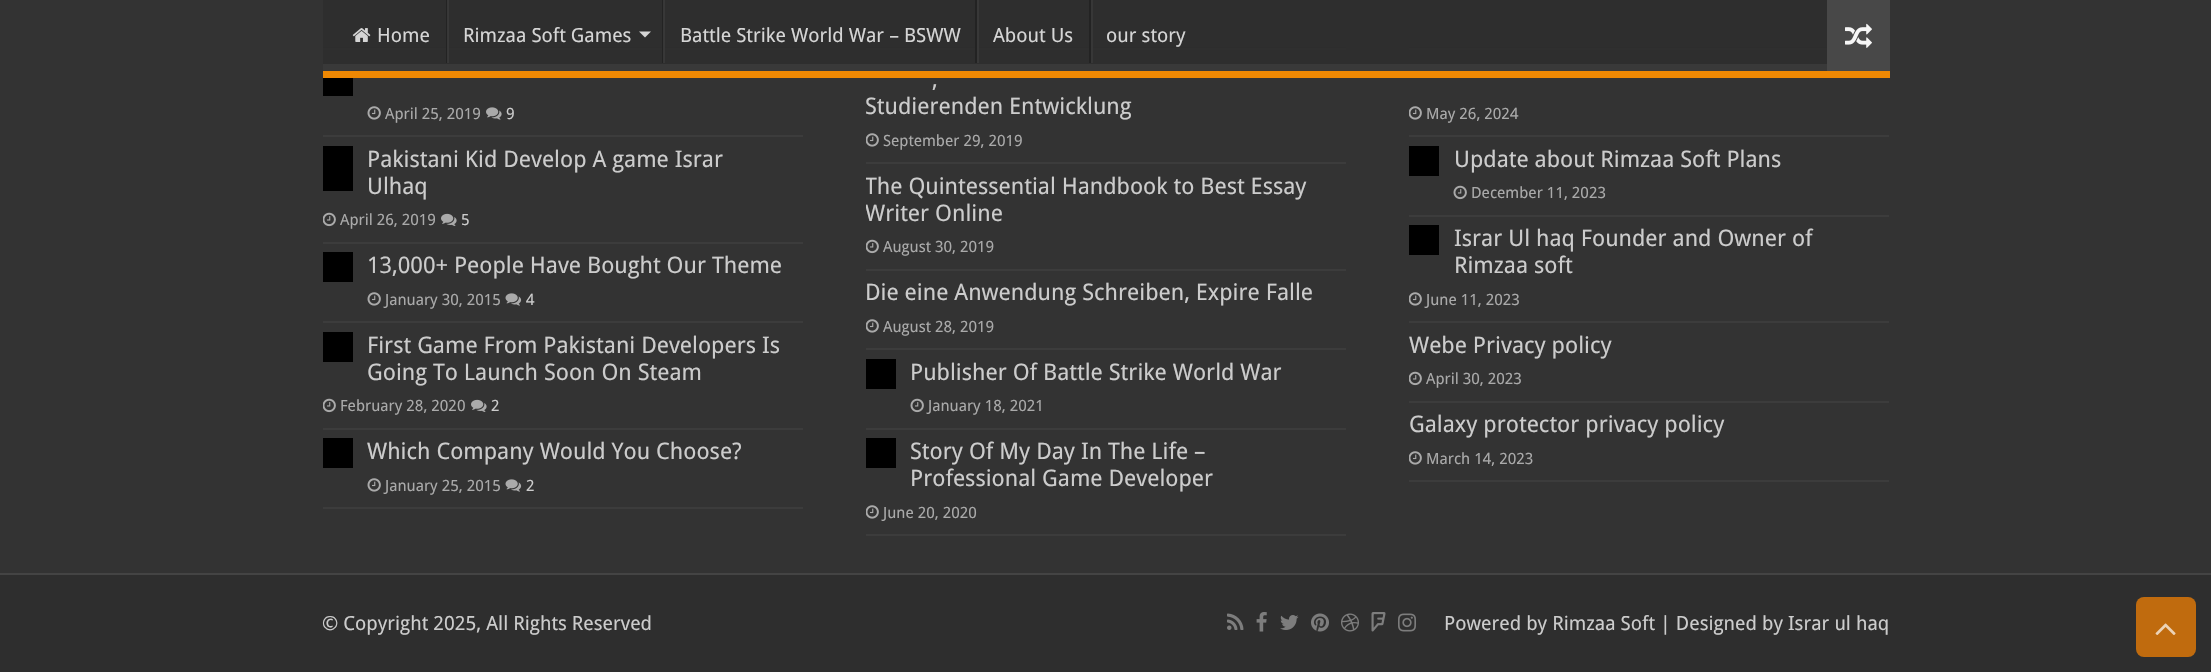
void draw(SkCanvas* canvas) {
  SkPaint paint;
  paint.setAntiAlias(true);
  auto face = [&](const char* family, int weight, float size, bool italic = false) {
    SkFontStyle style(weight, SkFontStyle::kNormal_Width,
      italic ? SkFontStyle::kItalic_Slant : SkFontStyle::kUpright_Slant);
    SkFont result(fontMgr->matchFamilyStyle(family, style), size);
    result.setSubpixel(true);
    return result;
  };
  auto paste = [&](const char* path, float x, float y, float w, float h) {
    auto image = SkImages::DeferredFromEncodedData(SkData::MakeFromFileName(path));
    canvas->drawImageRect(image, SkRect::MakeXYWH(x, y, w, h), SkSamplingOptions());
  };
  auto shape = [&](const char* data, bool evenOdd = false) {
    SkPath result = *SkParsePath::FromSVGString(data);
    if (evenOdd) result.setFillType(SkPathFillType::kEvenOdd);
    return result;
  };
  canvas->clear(0xff333333);
  {
    const struct { float x, y, w, h; SkColor color; } items[] = {
      {323, 47, 480, 1, 0xff222222},
      {323, 48, 480, 2, 0xff444444},
      {323, 66, 30, 30, 0xff000000},
      {866, 47, 480, 1, 0xff222222},
      {866, 48, 480, 2, 0xff444444},
      {1409, 47, 480, 1, 0xff222222},
      {1409, 48, 480, 2, 0xff444444},
      {323, 0, 1567, 78, 0xf22d2d2d},
    };
    for (auto [x, y, w, h, color] : items) {
      paint.setColor(color);
      canvas->drawRect(SkRect::MakeXYWH(x, y, w, h), paint);
    }
  }
  canvas->save();
  canvas->clipRect(SkRect::MakeXYWH(323, 0, 1567, 71));
  paint.setColor(0xf2393939);
  canvas->drawPath(shape("M174-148H2038V219H174ZM321-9H1888C1889-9 1890-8 1890-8V63C1890 64 1889 64 1888 64H321C320 64 320 64 320 63V-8C320-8 320-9 321-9Z", true), paint);
  canvas->restore();
  paint.setColor(0xf2f88c00);
  canvas->drawRect(SkRect::MakeXYWH(323, 71, 1567, 7), paint);
  paste("img/1.png", 352, 28, 19, 14);
  paint.setColor(0xf2222222);
  canvas->drawRect(SkRect::MakeXYWH(446, 0, 2, 63), paint);
  paint.setColor(0xf2383838);
  canvas->drawRect(SkRect::MakeXYWH(447, 0, 2, 63), paint);
  paint.setColor(0xffd5d5d5);
  canvas->drawPath(shape("M639 31.5H651L645 37.5Z"), paint);
  {
    const struct { float x, y, w, h; SkColor color; } items[] = {
      {662, 0, 2, 63, 0xff232323},
      {663, 0, 2, 63, 0xf2383838},
      {975, 0, 2, 63, 0xf2222222},
      {977, 0, 2, 63, 0xf2383838},
      {1089, 0, 2, 63, 0xff232323},
      {1091, 0, 2, 63, 0xff373737},
      {1827, 0, 63, 71, 0xf2494949},
    };
    for (auto [x, y, w, h, color] : items) {
      paint.setColor(color);
      canvas->drawRect(SkRect::MakeXYWH(x, y, w, h), paint);
    }
  }
  paste("img/2.png", 1845, 23, 27, 25);
  paint.setColor(0xff3c3c3c);
  canvas->drawRect(SkRect::MakeXYWH(323, 135, 480, 2), paint);
  paste("img/3.png", 367, 106, 14, 14);
  paste("img/4.png", 486, 107, 16, 13);
  canvas->drawRect(SkRect::MakeXYWH(323, 242, 480, 2), paint);
  paint.setColor(0xff000000);
  canvas->drawRect(SkRect::MakeXYWH(323, 146, 30, 45), paint);
  paste("img/5.png", 323, 212, 13, 15);
  paste("img/6.png", 441, 213, 16, 13);
  paint.setColor(0xff3c3c3c);
  canvas->drawRect(SkRect::MakeXYWH(323, 321, 480, 2), paint);
  paint.setColor(0xff000000);
  canvas->drawRect(SkRect::MakeXYWH(323, 252, 30, 30), paint);
  paste("img/3.png", 367, 292, 14, 14);
  paste("img/7.png", 505, 293, 17, 13);
  paint.setColor(0xff3c3c3c);
  canvas->drawRect(SkRect::MakeXYWH(323, 428, 480, 2), paint);
  paint.setColor(0xff000000);
  canvas->drawRect(SkRect::MakeXYWH(323, 332, 30, 30), paint);
  paste("img/5.png", 323, 398, 13, 15);
  paste("img/6.png", 471, 399, 16, 13);
  paint.setColor(0xff3c3c3c);
  canvas->drawRect(SkRect::MakeXYWH(323, 507, 480, 2), paint);
  paint.setColor(0xff000000);
  canvas->drawRect(SkRect::MakeXYWH(323, 438, 30, 30), paint);
  paste("img/3.png", 367, 478, 14, 14);
  paste("img/7.png", 505, 479, 17, 13);
  paint.setColor(0xff3c3c3c);
  canvas->drawRect(SkRect::MakeXYWH(866, 162, 480, 2), paint);
  paste("img/8.png", 866, 133, 13, 14);
  canvas->drawRect(SkRect::MakeXYWH(866, 269, 480, 2), paint);
  paste("img/5.png", 866, 239, 13, 15);
  canvas->drawRect(SkRect::MakeXYWH(866, 348, 480, 2), paint);
  paste("img/8.png", 866, 319, 13, 14);
  canvas->drawRect(SkRect::MakeXYWH(866, 428, 480, 2), paint);
  paint.setColor(0xff000000);
  canvas->drawRect(SkRect::MakeXYWH(866, 359, 30, 30), paint);
  paste("img/9.png", 910, 398, 14, 15);
  paint.setColor(0xff3c3c3c);
  canvas->drawRect(SkRect::MakeXYWH(866, 534, 480, 2), paint);
  paint.setColor(0xff000000);
  canvas->drawRect(SkRect::MakeXYWH(866, 438, 30, 30), paint);
  paste("img/8.png", 866, 505, 13, 14);
  paint.setColor(0xff3c3c3c);
  canvas->drawRect(SkRect::MakeXYWH(1409, 135, 480, 2), paint);
  paste("img/8.png", 1409, 106, 13, 14);
  canvas->drawRect(SkRect::MakeXYWH(1409, 215, 480, 2), paint);
  paint.setColor(0xff000000);
  canvas->drawRect(SkRect::MakeXYWH(1409, 146, 30, 30), paint);
  paste("img/9.png", 1453, 185, 14, 15);
  paint.setColor(0xff3c3c3c);
  canvas->drawRect(SkRect::MakeXYWH(1409, 321, 480, 2), paint);
  paint.setColor(0xff000000);
  canvas->drawRect(SkRect::MakeXYWH(1409, 225, 30, 30), paint);
  paste("img/8.png", 1409, 292, 13, 14);
  paint.setColor(0xff3c3c3c);
  canvas->drawRect(SkRect::MakeXYWH(1409, 401, 480, 2), paint);
  paste("img/5.png", 1409, 371, 13, 15);
  canvas->drawRect(SkRect::MakeXYWH(1409, 480, 480, 2), paint);
  paste("img/8.png", 1409, 451, 13, 14);
  paint.setColor(0xff2e2e2e);
  canvas->drawRect(SkRect::MakeXYWH(0, 575, 2211, 97), paint);
  paint.setColor(0xff444444);
  canvas->drawRect(SkRect::MakeXYWH(0, 573, 2211, 2), paint);
  paste("img/10.png", 1227, 613, 17, 17);
  paste("img/11.png", 1256, 612, 11, 20);
  paste("img/12.png", 1280, 615, 19, 15);
  paste("img/13.png", 1311, 613, 18, 19);
  paste("img/14.png", 1341, 613, 18, 19);
  paste("img/15.png", 1371, 612, 15, 20);
  paste("img/16.png", 1398, 613, 18, 19);
  paint.setColor(0xffc06b0e);
  canvas->drawRoundRect(SkRect::MakeXYWH(2136, 597, 60, 60), 8, 8, paint);
  paste("img/17.png", 2155, 623, 21, 12);
  auto f0 = face("Droid Sans", 400, 19.5f);
  paint.setColor(0xffd5d5d5);
  {
    const struct { const char* s; float x, y; } items[] = {
      {"Home", 377, 42},
      {"Rimzaa Soft Games", 463, 42},
      {"Battle Strike World War – BSWW", 680, 42},
      {"About Us", 993, 42},
      {"our story", 1106, 42},
    };
    for (auto [s, x, y] : items) {
      canvas->drawString(s, x, y, f0, paint);
    }
  }
  auto f1 = face("Droid Sans", 400, 15.5f);
  paint.setColor(0xffaaaaaa);
  canvas->drawString("April 25, 2019", 385, 119, f1, paint);
  paint.setColor(0xffcccccc);
  canvas->drawString("9", 506, 119, f1, paint);
  auto f2 = face("Droid Sans", 400, 22.8f);
  canvas->drawString("Pakistani Kid Develop A game Israr", 367, 167, f2, paint);
  canvas->drawString("Ulhaq", 367, 194, f2, paint);
  paint.setColor(0xffaaaaaa);
  canvas->drawString("April 26, 2019", 340, 225, f1, paint);
  paint.setColor(0xffcccccc);
  canvas->drawString("5", 461, 225, f1, paint);
  canvas->drawString("13,000+ People Have Bought Our Theme", 367, 273, f2, paint);
  paint.setColor(0xffaaaaaa);
  canvas->drawString("January 30, 2015", 385, 305, f1, paint);
  paint.setColor(0xffcccccc);
  canvas->drawString("4", 526, 305, f1, paint);
  canvas->drawString("First Game From Pakistani Developers Is", 367, 353, f2, paint);
  canvas->drawString("Going To Launch Soon On Steam", 367, 380, f2, paint);
  paint.setColor(0xffaaaaaa);
  canvas->drawString("February 28, 2020", 340, 411, f1, paint);
  paint.setColor(0xffcccccc);
  canvas->drawString("2", 491, 411, f1, paint);
  canvas->drawString("Which Company Would You Choose?", 367, 459, f2, paint);
  paint.setColor(0xffaaaaaa);
  canvas->drawString("January 25, 2015", 385, 491, f1, paint);
  paint.setColor(0xffcccccc);
  canvas->drawString("2", 526, 491, f1, paint);
  canvas->drawString(",", 932, 87, f2, paint);
  canvas->drawString("Studierenden Entwicklung", 865, 114, f2, paint);
  paint.setColor(0xffaaaaaa);
  canvas->drawString("September 29, 2019", 883, 146, f1, paint);
  canvas->save();
  canvas->clipRect(SkRect::MakeXYWH(866, 164, 480, 105));
  paint.setColor(0xffcccccc);
  canvas->drawString("The Quintessential Handbook to Best Essay", 865, 194, f2, paint);
  canvas->drawString("Writer Online", 865, 221, f2, paint);
  canvas->restore();
  paint.setColor(0xffaaaaaa);
  canvas->drawString("August 30, 2019", 883, 252, f1, paint);
  paint.setColor(0xffcccccc);
  canvas->drawString("Die eine Anwendung Schreiben, Expire Falle", 865, 300, f2, paint);
  paint.setColor(0xffaaaaaa);
  canvas->drawString("August 28, 2019", 883, 332, f1, paint);
  paint.setColor(0xffcccccc);
  canvas->drawString("Publisher Of Battle Strike World War", 910, 380, f2, paint);
  paint.setColor(0xffaaaaaa);
  canvas->drawString("January 18, 2021", 928, 411, f1, paint);
  paint.setColor(0xffcccccc);
  canvas->drawString("Story Of My Day In The Life –", 910, 459, f2, paint);
  canvas->drawString("Professional Game Developer", 910, 486, f2, paint);
  paint.setColor(0xffaaaaaa);
  canvas->drawString("June 20, 2020", 883, 518, f1, paint);
  canvas->drawString("May 26, 2024", 1426, 119, f1, paint);
  paint.setColor(0xffcccccc);
  canvas->drawString("Update about Rimzaa Soft Plans", 1454, 167, f2, paint);
  paint.setColor(0xffaaaaaa);
  canvas->drawString("December 11, 2023", 1471, 198, f1, paint);
  paint.setColor(0xffcccccc);
  canvas->drawString("Israr Ul haq Founder and Owner of", 1454, 246, f2, paint);
  canvas->drawString("Rimzaa soft", 1454, 273, f2, paint);
  paint.setColor(0xffaaaaaa);
  canvas->drawString("June 11, 2023", 1426, 305, f1, paint);
  paint.setColor(0xffcccccc);
  canvas->drawString("Webe Privacy policy", 1409, 353, f2, paint);
  paint.setColor(0xffaaaaaa);
  canvas->drawString("April 30, 2023", 1426, 384, f1, paint);
  paint.setColor(0xffcccccc);
  canvas->drawString("Galaxy protector privacy policy", 1409, 432, f2, paint);
  paint.setColor(0xffaaaaaa);
  canvas->drawString("March 14, 2023", 1426, 464, f1, paint);
  paint.setColor(0xffcccccc);
  canvas->drawString("© Copyright 2025, All Rights Reserved", 322, 630, f0, paint);
  canvas->drawString("Powered by Rimzaa Soft | Designed by Israr ul haq", 1444, 630, f0, paint);
}
